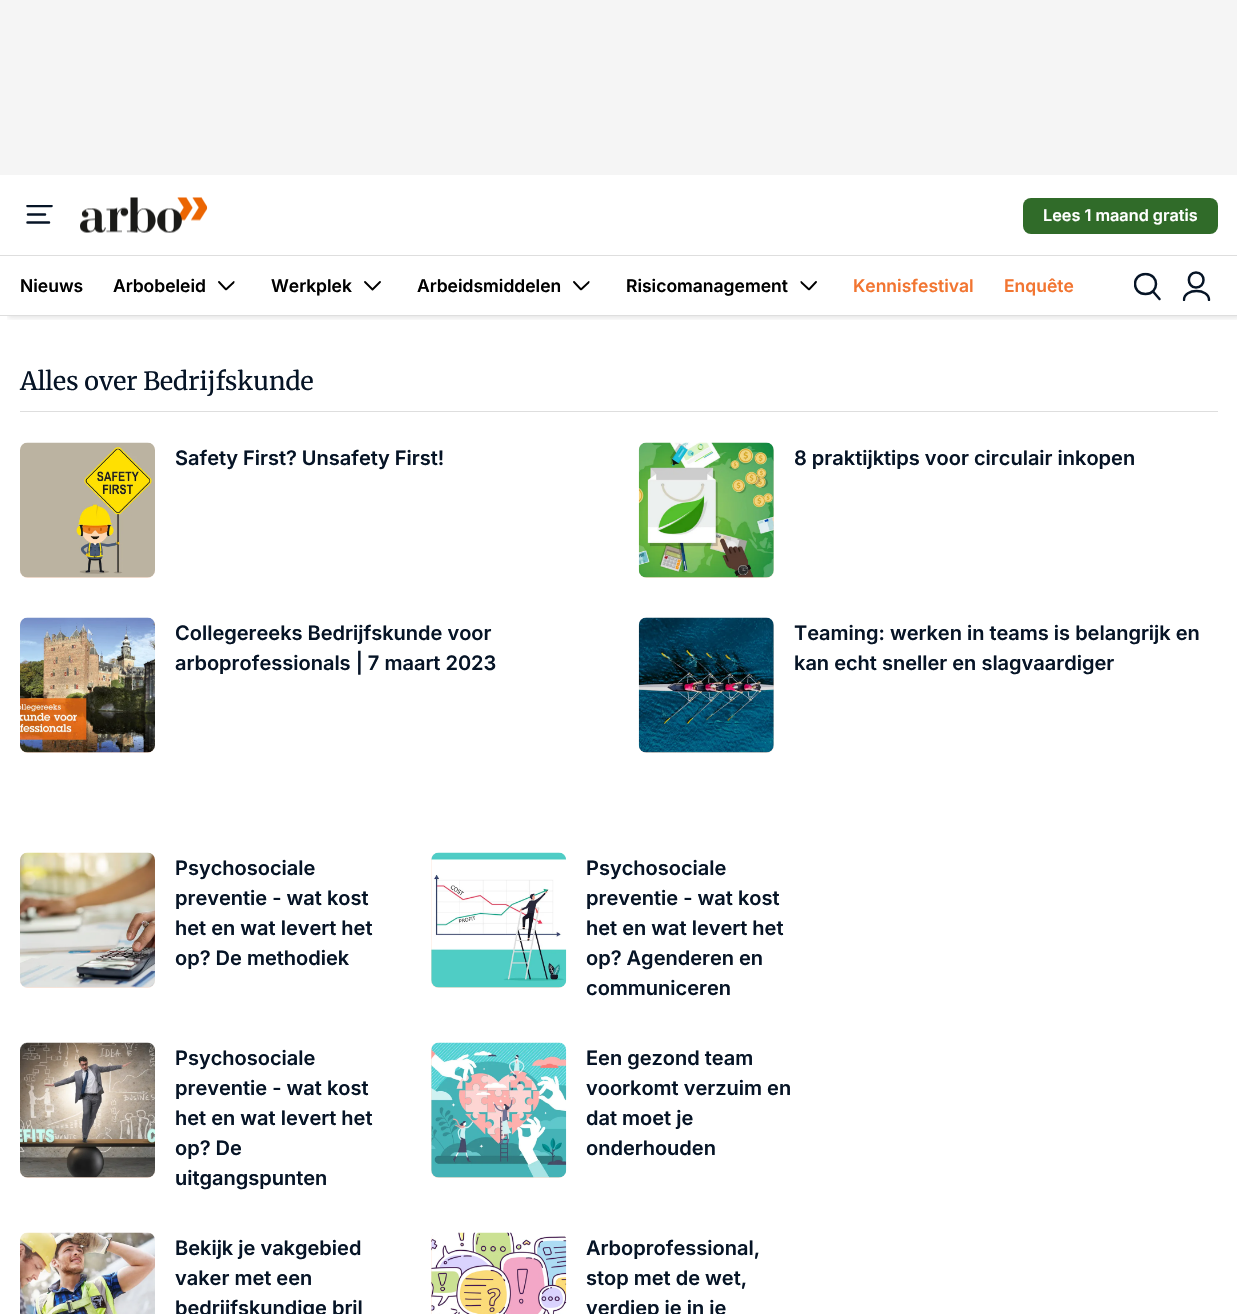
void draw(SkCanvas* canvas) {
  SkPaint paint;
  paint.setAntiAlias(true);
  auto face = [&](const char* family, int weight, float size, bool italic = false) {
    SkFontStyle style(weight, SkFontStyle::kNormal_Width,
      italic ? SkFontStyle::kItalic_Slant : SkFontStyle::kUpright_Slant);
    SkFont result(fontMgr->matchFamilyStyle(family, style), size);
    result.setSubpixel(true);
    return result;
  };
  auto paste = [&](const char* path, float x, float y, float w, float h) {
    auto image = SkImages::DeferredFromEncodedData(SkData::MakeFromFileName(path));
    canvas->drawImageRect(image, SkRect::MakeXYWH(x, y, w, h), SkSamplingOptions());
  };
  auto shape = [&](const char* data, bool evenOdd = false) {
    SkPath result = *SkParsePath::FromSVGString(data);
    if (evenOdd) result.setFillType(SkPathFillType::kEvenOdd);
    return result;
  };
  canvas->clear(0xffffffff);
  paint.setColor(0xfff5f5f5);
  canvas->drawRect(SkRect::MakeXYWH(0, 0, 1237, 175), paint);
  canvas->save();
  canvas->clipRect(SkRect::MakeXYWH(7, 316, 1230, 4));
  paint.setColor(0x1a000000);
  paint.setMaskFilter(SkMaskFilter::MakeBlur(kNormal_SkBlurStyle, 2.5f));
  canvas->drawRect(SkRect::MakeXYWH(8, 181, 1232, 137), paint);
  paint.setMaskFilter(nullptr);
  canvas->restore();
  paint.setColor(0xffdedede);
  canvas->drawRect(SkRect::MakeXYWH(0, 315, 1237, 1), paint);
  canvas->save();
  canvas->clipPath(shape("M26 205H54V225H26Z"), true);
  paint.setStroke(true);
  paint.setStrokeWidth(2.5f);
  paint.setStrokeCap(SkPaint::kRound_Cap);
  paint.setStrokeJoin(SkPaint::kRound_Join);
  paint.setColor(0xff061426);
  canvas->drawPath(shape("M27.5 206H51.5M28 214.5H45M27.5 222.5H49"), paint);
  canvas->restore();
  paste("img/1.png", 80, 197, 128, 36);
  paint.setStroke(false);
  paint.setColor(0xff306b29);
  canvas->drawRoundRect(SkRect::MakeXYWH(1023, 198, 195, 36), 8, 8, paint);
  paint.setColor(0xffdedede);
  canvas->drawRect(SkRect::MakeXYWH(0, 255, 1237, 1), paint);
  canvas->save();
  canvas->clipPath(shape("M218 281H234.5V290.5H218Z"), true);
  paint.setStroke(true);
  paint.setStrokeWidth(1.9f);
  paint.setColor(0xff000000);
  canvas->drawPath(shape("M234 282L226 289.5L219 282"), paint);
  canvas->restore();
  canvas->drawPath(shape("M380 282L372.5 289.5L365 282"), paint);
  canvas->save();
  canvas->clipPath(shape("M573 281H589.5V290.5H573Z"), true);
  canvas->drawPath(shape("M589 282L581 289.5L574 282"), paint);
  canvas->restore();
  canvas->save();
  canvas->clipPath(shape("M800.5 281H817V290.5H800.5Z"), true);
  canvas->drawPath(shape("M816 282L809 289.5L801 282"), paint);
  canvas->restore();
  canvas->save();
  canvas->clipPath(shape("M1134 272.5H1161V300H1134Z"), true);
  paint.setStrokeWidth(2.5f);
  paint.setColor(0xff061426);
  canvas->drawPath(shape("M1145.5 294C1159.5 294 1159.5 274 1145.5 274C1131.5 274 1131.5 294 1145.5 294"), paint);
  canvas->restore();
  canvas->drawPath(shape("M1153 291.5L1159.5 299"), paint);
  canvas->save();
  canvas->clipPath(shape("M1182.5 271H1211V301H1182.5Z"), true);
  canvas->drawPath(shape("M1196 287.5C1206 287.5 1206 272.5 1196 272.5C1186.5 272.5 1186.5 287.5 1196 287.5"), paint);
  paint.setStrokeWidth(2.4f);
  canvas->drawPath(shape("M1184 300C1184 288 1209 288 1209 300"), paint);
  canvas->restore();
  paint.setStroke(false);
  paint.setColor(0xffdedede);
  canvas->drawRect(SkRect::MakeXYWH(20, 411, 1198, 1), paint);
  paint.setColor(0xfffce3d6);
  canvas->drawRoundRect(SkRect::MakeXYWH(20, 443, 135, 135), 8, 8, paint);
  paste("img/2.png", 20, 442, 135, 136);
  canvas->drawRoundRect(SkRect::MakeXYWH(639, 443, 135, 135), 8, 8, paint);
  paste("img/3.png", 638, 442, 136, 136);
  canvas->drawRoundRect(SkRect::MakeXYWH(20, 618, 135, 135), 8, 8, paint);
  paste("img/4.png", 20, 617, 135, 136);
  canvas->drawRoundRect(SkRect::MakeXYWH(639, 618, 135, 135), 8, 8, paint);
  paste("img/5.png", 638, 617, 136, 136);
  canvas->drawRoundRect(SkRect::MakeXYWH(20, 853, 135, 135), 8, 8, paint);
  paste("img/6.png", 20, 852, 135, 136);
  canvas->drawRoundRect(SkRect::MakeXYWH(431, 853, 135, 135), 8, 8, paint);
  paste("img/7.png", 431, 852, 136, 136);
  canvas->drawRoundRect(SkRect::MakeXYWH(20, 1043, 135, 135), 8, 8, paint);
  paste("img/8.png", 20, 1042, 135, 136);
  canvas->drawRoundRect(SkRect::MakeXYWH(431, 1043, 135, 135), 8, 8, paint);
  paste("img/9.png", 431, 1042, 136, 136);
  paste("img/10.png", 20, 1232, 135, 82);
  canvas->drawRoundRect(SkRect::MakeXYWH(431, 1233, 135, 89), 8, 8, paint);
  paste("img/11.png", 431, 1232, 136, 82);
  auto f0 = face("Inter", 600, 16.25f);
  paint.setColor(0xffffffff);
  canvas->drawString("Lees 1 maand gratis", 1043, 221, f0, paint);
  auto f1 = face("Inter", 600, 17.5f);
  paint.setColor(0xff000000);
  {
    const struct { const char* s; float x, y; } items[] = {
      {"Nieuws", 20, 292},
      {"Arbobeleid", 113, 292},
      {"Werkplek", 271, 292},
      {"Arbeidsmiddelen", 417, 292},
      {"Risicomanagement", 626, 292},
    };
    for (auto [s, x, y] : items) {
      canvas->drawString(s, x, y, f1, paint);
    }
  }
  paint.setColor(0xfff27531);
  canvas->drawString("Kennisfestival", 853, 292, f1, paint);
  canvas->drawString("Enquête", 1004, 292, f1, paint);
  auto f2 = face("Merriweather", 400, 25);
  paint.setColor(0xff061426);
  canvas->drawString("Alles over Bedrijfskunde", 20, 390, f2, paint);
  auto f3 = face("Inter", 600, 20);
  {
    const struct { const char* s; float x, y; } items[] = {
      {"Safety First? Unsafety First!", 175, 465},
      {"8 praktijktips voor circulair inkopen", 794, 465},
      {"Collegereeks Bedrijfskunde voor", 175, 640},
      {"arboprofessionals | 7 maart 2023", 175, 670},
      {"Teaming: werken in teams is belangrijk en", 794, 640},
      {"kan echt sneller en slagvaardiger", 794, 670},
      {"Psychosociale", 175, 875},
      {"preventie - wat kost", 175, 905},
      {"het en wat levert het", 175, 935},
      {"op? De methodiek", 175, 965},
      {"Psychosociale", 586, 875},
      {"preventie - wat kost", 586, 905},
      {"het en wat levert het", 586, 935},
      {"op? Agenderen en", 586, 965},
      {"communiceren", 586, 995},
      {"Psychosociale", 175, 1065},
      {"preventie - wat kost", 175, 1095},
      {"het en wat levert het", 175, 1125},
      {"op? De", 175, 1155},
      {"uitgangspunten", 175, 1185},
      {"Een gezond team", 586, 1065},
      {"voorkomt verzuim en", 586, 1095},
      {"dat moet je", 586, 1125},
      {"onderhouden", 586, 1155},
      {"Bekijk je vakgebied", 175, 1255},
      {"vaker met een", 175, 1285},
      {"bedrijfskundige bril", 175, 1315},
      {"Arboprofessional,", 586, 1255},
      {"stop met de wet,", 586, 1285},
      {"verdiep je in je", 586, 1315},
    };
    for (auto [s, x, y] : items) {
      canvas->drawString(s, x, y, f3, paint);
    }
  }
}
